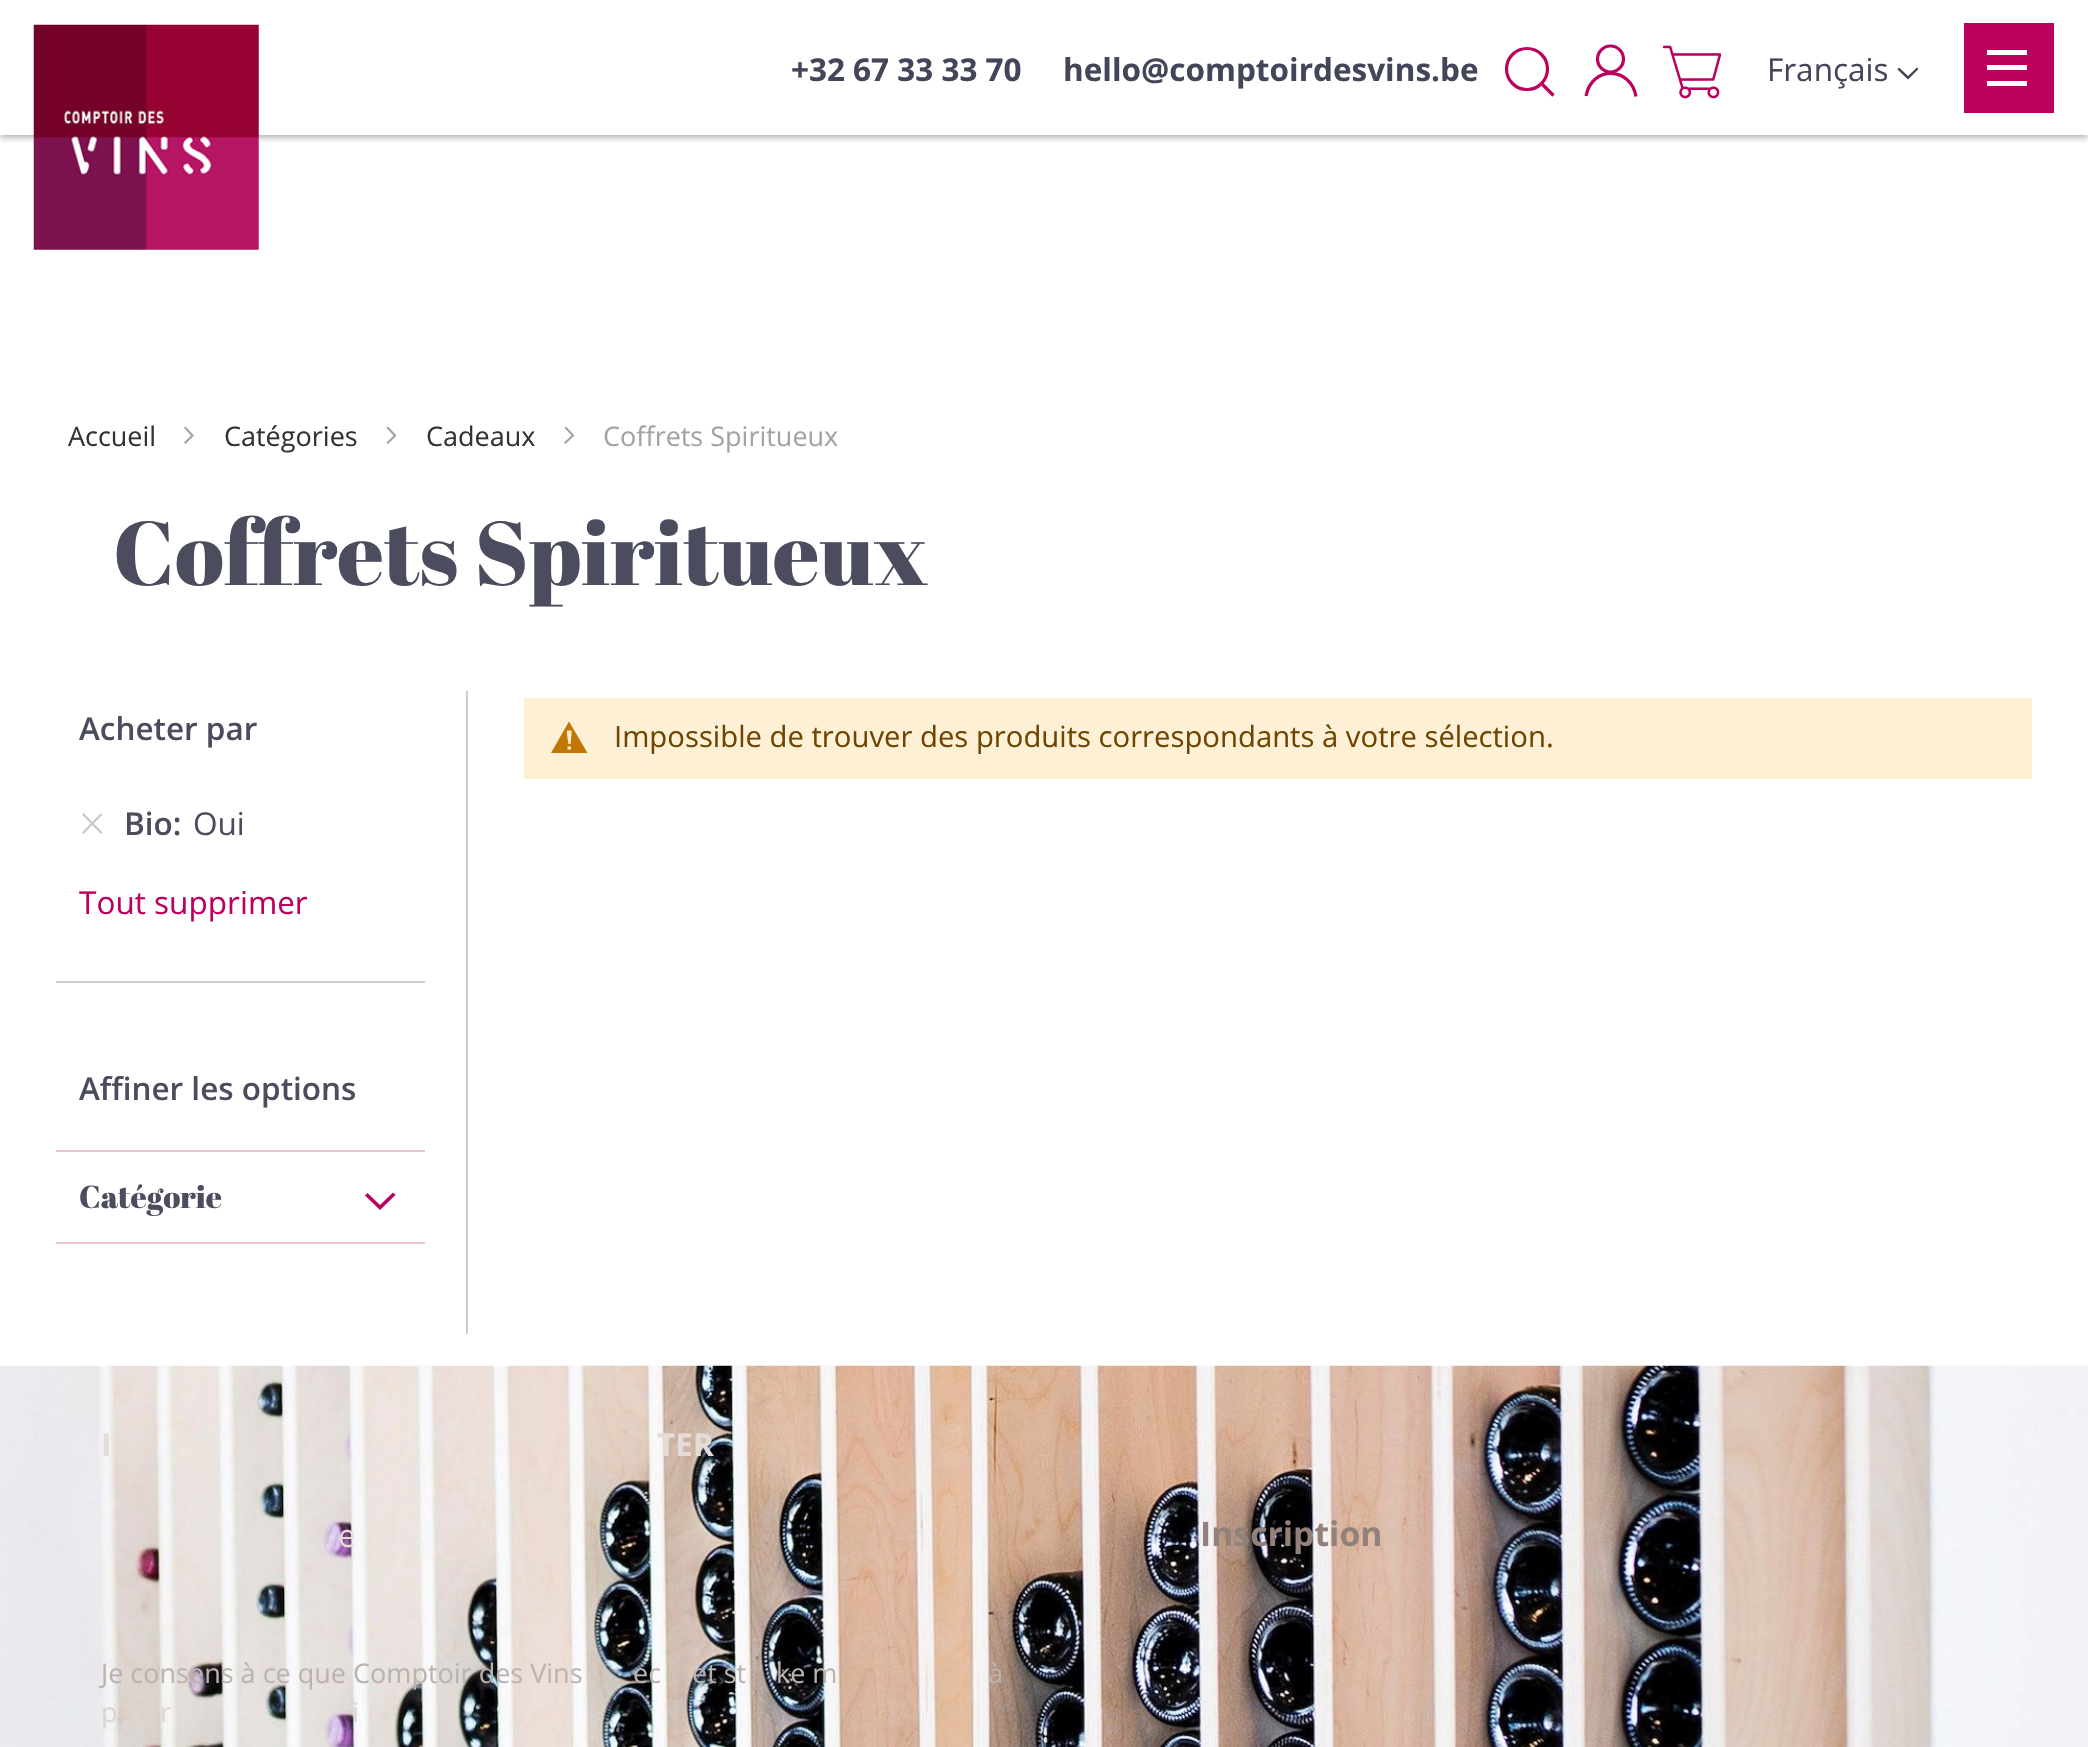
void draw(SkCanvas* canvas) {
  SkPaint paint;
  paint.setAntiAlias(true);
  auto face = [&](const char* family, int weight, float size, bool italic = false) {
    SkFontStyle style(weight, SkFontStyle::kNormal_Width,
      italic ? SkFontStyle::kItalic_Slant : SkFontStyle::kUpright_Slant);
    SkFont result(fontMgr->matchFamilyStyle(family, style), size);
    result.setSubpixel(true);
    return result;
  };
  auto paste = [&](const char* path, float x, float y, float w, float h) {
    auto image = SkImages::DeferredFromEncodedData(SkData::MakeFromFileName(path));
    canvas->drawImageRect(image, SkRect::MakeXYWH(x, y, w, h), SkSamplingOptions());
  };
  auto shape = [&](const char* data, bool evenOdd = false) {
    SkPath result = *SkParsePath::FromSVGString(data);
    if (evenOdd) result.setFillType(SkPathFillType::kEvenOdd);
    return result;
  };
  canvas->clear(0xffffffff);
  canvas->save();
  canvas->clipRect(SkRect::MakeXYWH(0, 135, 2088, 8));
  paint.setColor(0x59000000);
  paint.setMaskFilter(SkMaskFilter::MakeBlur(kNormal_SkBlurStyle, 3.5f));
  canvas->drawRect(SkRect::MakeXYWH(0, 2, 2088, 135), paint);
  paint.setMaskFilter(nullptr);
  canvas->restore();
  paste("img/1.png", 33, 24, 226, 226);
  paint.setStroke(true);
  paint.setStrokeWidth(3.2f);
  paint.setColor(0xffbb005e);
  canvas->drawCircle(1527, 69, 20.5f, paint);
  canvas->drawPath(shape("M1541.5 83.5L1553.5 95.5Z"), paint);
  canvas->drawCircle(1610.5f, 59, 13, paint);
  canvas->drawPath(shape("M1586 96C1591.5 65.5 1630.5 66 1636 96.5"), paint);
  paste("img/2.png", 1663, 45, 58, 54);
  paint.setStroke(false);
  paint.setColor(0xff434559);
  canvas->drawPath(shape("M1908 76L1899 67.5L1897.5 69.5L1908 79.5L1918.5 69L1917 67.5Z"), paint);
  {
    const struct { float x, y, w, h; SkColor color; } items[] = {
      {1964, 23, 90, 90, 0xffbb005e},
      {1987, 50, 40, 5, 0xffffffff},
      {1987, 65, 40, 5, 0xffffffff},
      {1987, 81, 40, 5, 0xffffffff},
    };
    for (auto [x, y, w, h, color] : items) {
      paint.setColor(color);
      canvas->drawRect(SkRect::MakeXYWH(x, y, w, h), paint);
    }
  }
  paint.setColor(0xffa3a3a3);
  canvas->drawPath(shape("M194 435.5L185.5 426.5L184 428L191 435.5L184 442.5L185.5 444Z"), paint);
  canvas->drawPath(shape("M396.5 435.5L388 426.5L386.5 428L393.5 435.5L386.5 442.5L388 444Z"), paint);
  canvas->drawPath(shape("M574.5 435.5L566 426.5L564.5 428L571.5 435.5L564 442.5L565.5 444Z"), paint);
  paint.setColor(0xffcccccc);
  canvas->drawRect(SkRect::MakeXYWH(466, 691, 2, 643), paint);
  paint.setColor(0xffc7c7c7);
  canvas->drawPath(shape("M82 832.5L101 813L102.5 814.5L83.5 834Z"), paint);
  canvas->drawPath(shape("M83.5 813L102.5 832.5L101 834L82 814.5Z"), paint);
  {
    const struct { float x, y, w, h; SkColor color; } items[] = {
      {56, 981, 369, 2, 0xffcccccc},
      {56, 1150, 369, 2, 0xffe8c4d6},
      {56, 1242, 369, 2, 0xffe8c4d6},
    };
    for (auto [x, y, w, h, color] : items) {
      paint.setColor(color);
      canvas->drawRect(SkRect::MakeXYWH(x, y, w, h), paint);
    }
  }
  paint.setColor(0xffbb005e);
  canvas->drawPath(shape("M380 1205L367.5 1193L365 1195.5L380 1210L395.5 1195L393 1192.5Z"), paint);
  paint.setColor(0xfffdf0d5);
  canvas->drawRect(SkRect::MakeXYWH(524, 698, 1508, 81), paint);
  paint.setColor(0xffc07600);
  canvas->drawPath(shape("M569 721.5L551 753H587.5ZM571 749.5H567.5V746.5H571ZM570.5 744H568.5L567 735V730.5H571.5V735Z"), paint);
  paste("img/3.png", 0, 1365, 2088, 382);
  auto f0 = face("Open Sans", 700, 31.5f);
  paint.setColor(0xff434559);
  canvas->drawString("+32 67 33 33 70", 791, 81, f0, paint);
  canvas->drawString("hello@comptoirdesvins.be", 1063, 81, f0, paint);
  auto f1 = face("Open Sans", 400, 31.5f);
  canvas->drawString("Français", 1767, 81, f1, paint);
  auto f2 = face("Open Sans", 400, 27);
  paint.setColor(0xff333333);
  {
    const struct { const char* s; float x, y; } items[] = {
      {"Accueil", 68, 446},
      {"Catégories", 224, 446},
      {"Cadeaux", 426, 446},
    };
    for (auto [s, x, y] : items) {
      canvas->drawString(s, x, y, f2, paint);
    }
  }
  paint.setColor(0xffa3a3a3);
  canvas->drawString("Coffrets Spiritueux", 603, 446, f2, paint);
  auto f3 = face("Abril Fatface", 400, 90);
  paint.setColor(0xff4b4d5f);
  canvas->drawString("Coffrets Spiritueux", 113, 585, f3, paint);
  auto f4 = face("Open Sans", 600, 31.5f);
  canvas->drawString("Acheter par", 79, 740, f4, paint);
  canvas->drawString("Bio:", 124, 835, f4, paint);
  canvas->drawString("Oui", 193, 835, f1, paint);
  paint.setColor(0xffbb005e);
  canvas->drawString("Tout supprimer", 79, 914, f1, paint);
  paint.setColor(0xff4b4d5f);
  canvas->drawString("Affiner les options", 79, 1100, f4, paint);
  auto f5 = face("Abril Fatface", 400, 31.5f);
  canvas->drawString("Catégorie", 79, 1208, f5, paint);
  auto f6 = face("Open Sans", 400, 29.25f);
  paint.setColor(0xff6f4400);
  canvas->drawString("Impossible de trouver des produits correspondants à votre sélection.", 614, 747, f6, paint);
  paint.setColor(0xffe6dcd7);
  canvas->drawString("I", 101, 1456, f0, paint);
  canvas->drawString("TER", 657, 1456, f0, paint);
  canvas->drawString("e", 338, 1547, f1, paint);
  paint.setColor(0xffbcb3af);
  {
    const struct { const char* s; float x, y; } items[] = {
      {"Je consens à ce que Comptoir des Vins", 101, 1683},
      {"ec", 633, 1683},
      {"et st", 692, 1683},
      {"ke m", 776, 1683},
      {"à", 988, 1683},
    };
    for (auto [s, x, y] : items) {
      canvas->drawString(s, x, y, f2, paint);
    }
  }
  paint.setColor(0xffdbd6d5);
  {
    const struct { const char* s; float x, y; } items[] = {
      {"p", 101, 1722},
      {"r", 160, 1722},
      {"i", 352, 1722},
    };
    for (auto [s, x, y] : items) {
      canvas->drawString(s, x, y, f2, paint);
    }
  }
  auto f7 = face("Open Sans", 700, 33.75f);
  paint.setColor(0xff92817a);
  canvas->drawString("Inscription", 1200, 1546, f7, paint);
}
